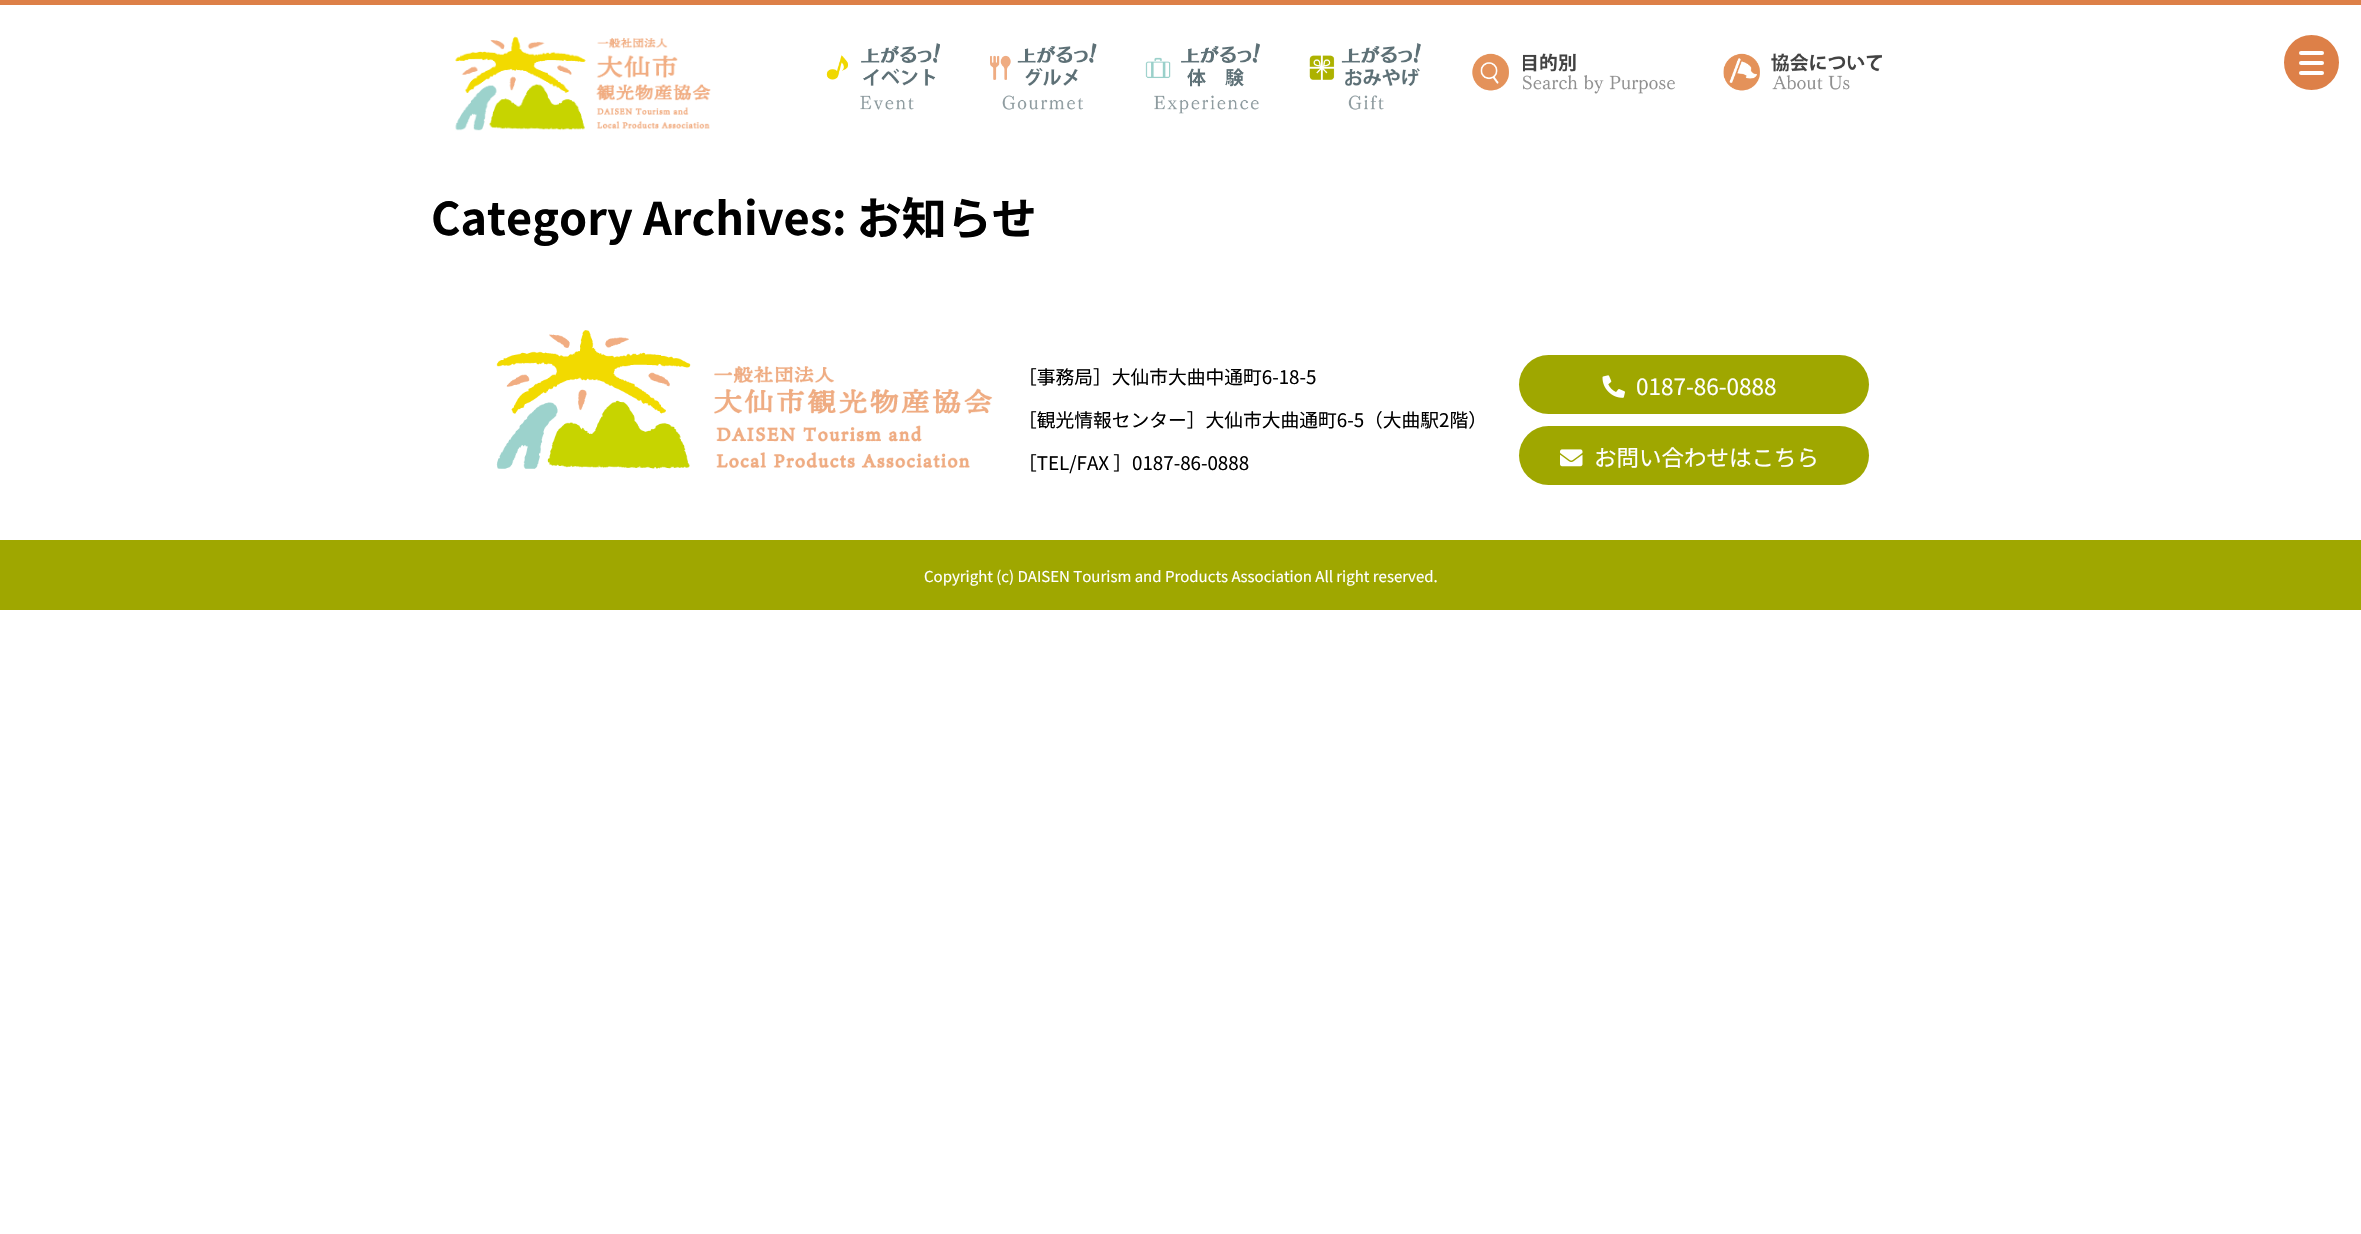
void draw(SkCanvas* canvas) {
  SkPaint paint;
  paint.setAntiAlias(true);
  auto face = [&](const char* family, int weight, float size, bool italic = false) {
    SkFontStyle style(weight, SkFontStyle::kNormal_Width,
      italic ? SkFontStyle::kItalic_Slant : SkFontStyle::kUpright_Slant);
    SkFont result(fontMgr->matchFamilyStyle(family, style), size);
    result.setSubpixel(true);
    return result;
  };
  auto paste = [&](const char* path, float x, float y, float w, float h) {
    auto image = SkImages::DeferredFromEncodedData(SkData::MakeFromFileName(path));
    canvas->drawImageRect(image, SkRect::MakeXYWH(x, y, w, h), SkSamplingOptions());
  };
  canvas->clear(0xffffffff);
  paint.setColor(0xffdd8048);
  canvas->drawRect(SkRect::MakeXYWH(0, 0, 2361, 5), paint);
  paste("img/1.png", 455, 36, 256, 95);
  paste("img/2.png", 826, 43, 114, 67);
  paste("img/3.png", 990, 43, 107, 67);
  paste("img/4.png", 1145, 43, 115, 71);
  paste("img/5.png", 1309, 43, 112, 67);
  paste("img/6.png", 1472, 53, 203, 41);
  paste("img/7.png", 1723, 53, 159, 38);
  canvas->drawCircle(2311.5f, 62.5f, 29.5f, paint);
  paint.setStroke(true);
  paint.setStrokeWidth(4);
  paint.setColor(0xffffffff);
  canvas->drawCircle(2311.5f, 62.5f, 29.5f, paint);
  paint.setStroke(false);
  canvas->drawRoundRect(SkRect::MakeXYWH(2299, 51, 25, 4), 2, 2, paint);
  canvas->drawRoundRect(SkRect::MakeXYWH(2299, 61, 25, 4), 2, 2, paint);
  canvas->drawRoundRect(SkRect::MakeXYWH(2299, 71, 25, 4), 2, 2, paint);
  paste("img/8.png", 496, 330, 497, 139);
  paint.setColor(0xff9fa700);
  canvas->drawRoundRect(SkRect::MakeXYWH(1519, 355, 350, 59), 29.5f, 29.5f, paint);
  paste("img/9.png", 1602, 375, 23, 23);
  canvas->drawRoundRect(SkRect::MakeXYWH(1519, 426, 350, 59), 29.5f, 29.5f, paint);
  paste("img/10.png", 1560, 449, 23, 18);
  canvas->drawRect(SkRect::MakeXYWH(0, 540, 2361, 70), paint);
  auto f0 = face("Noto Sans JP", 700, 45);
  paint.setColor(0xff000000);
  canvas->drawString("Category Archives: お知らせ", 431, 235, f0, paint);
  auto f1 = face("Noto Sans JP", 400, 18.75f);
  {
    const struct { const char* s; float x, y; } items[] = {
      {"［事務局］大仙市大曲中通町6-18-5", 1018, 384},
      {"［観光情報センター］大仙市大曲通町6-5（大曲駅2階）", 1018, 427},
      {"［TEL/FAX ］0187-86-0888", 1018, 470},
    };
    for (auto [s, x, y] : items) {
      canvas->drawString(s, x, y, f1, paint);
    }
  }
  auto f2 = face("Noto Sans JP", 400, 22.5f);
  paint.setColor(0xffffffff);
  canvas->drawString("0187-86-0888", 1636, 395, f2, paint);
  canvas->drawString("お問い合わせはこちら", 1594, 466, f2, paint);
  auto f3 = face("Noto Sans JP", 400, 15);
  canvas->drawString("Copyright (c) DAISEN Tourism and Products Association All right reserved.", 924, 582, f3, paint);
}
